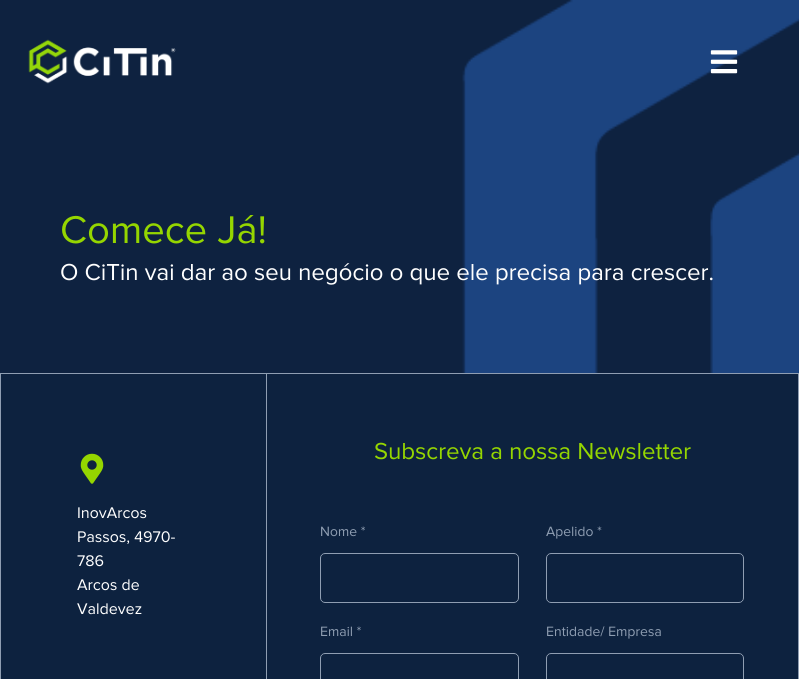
void draw(SkCanvas* canvas) {
  SkPaint paint;
  paint.setAntiAlias(true);
  auto paste = [&](const char* path, float x, float y, float w, float h) {
    auto image = SkImages::DeferredFromEncodedData(SkData::MakeFromFileName(path));
    canvas->drawImageRect(image, SkRect::MakeXYWH(x, y, w, h), SkSamplingOptions());
  };
  canvas->clear(0xffffffff);
  paste("img/1.png", 0, 0, 799, 373);
  paste("img/2.png", 28, 39, 148, 45);
  paste("img/3.png", 710, 50, 28, 24);
  paste("img/4.png", 62, 215, 203, 29);
  paste("img/5.png", 61, 263, 652, 22);
  paint.setColor(0xff0d223f);
  canvas->drawRect(SkRect::MakeXYWH(0.5f, 373.5f, 798, 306), paint);
  paint.setStroke(true);
  paint.setStrokeWidth(1);
  paint.setColor(0xff8f9eb2);
  canvas->drawRect(SkRect::MakeXYWH(0.5f, 373.5f, 798, 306), paint);
  paint.setStroke(false);
  canvas->drawRect(SkRect::MakeXYWH(266, 374, 1, 305), paint);
  paste("img/6.png", 80, 453, 24, 31);
  paste("img/7.png", 78, 507, 69, 12);
  paste("img/8.png", 78, 531, 97, 13);
  paste("img/9.png", 77, 555, 27, 12);
  paste("img/10.png", 77, 579, 62, 12);
  paste("img/11.png", 77, 603, 65, 12);
  paste("img/12.png", 375, 442, 316, 18);
  paste("img/13.png", 321, 526, 44, 11);
  paint.setStroke(true);
  canvas->drawRoundRect(SkRect::MakeXYWH(320.5f, 553.5f, 198, 49), 4.5f, 4.5f, paint);
  paste("img/14.png", 546, 526, 56, 13);
  canvas->drawRoundRect(SkRect::MakeXYWH(546.5f, 553.5f, 197, 49), 4.5f, 4.5f, paint);
  paste("img/15.png", 321, 626, 40, 11);
  canvas->drawRoundRect(SkRect::MakeXYWH(320.5f, 653.5f, 198, 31), 4.5f, 4.5f, paint);
  paste("img/16.png", 547, 626, 114, 13);
  canvas->drawRoundRect(SkRect::MakeXYWH(546.5f, 653.5f, 197, 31), 4.5f, 4.5f, paint);
}
